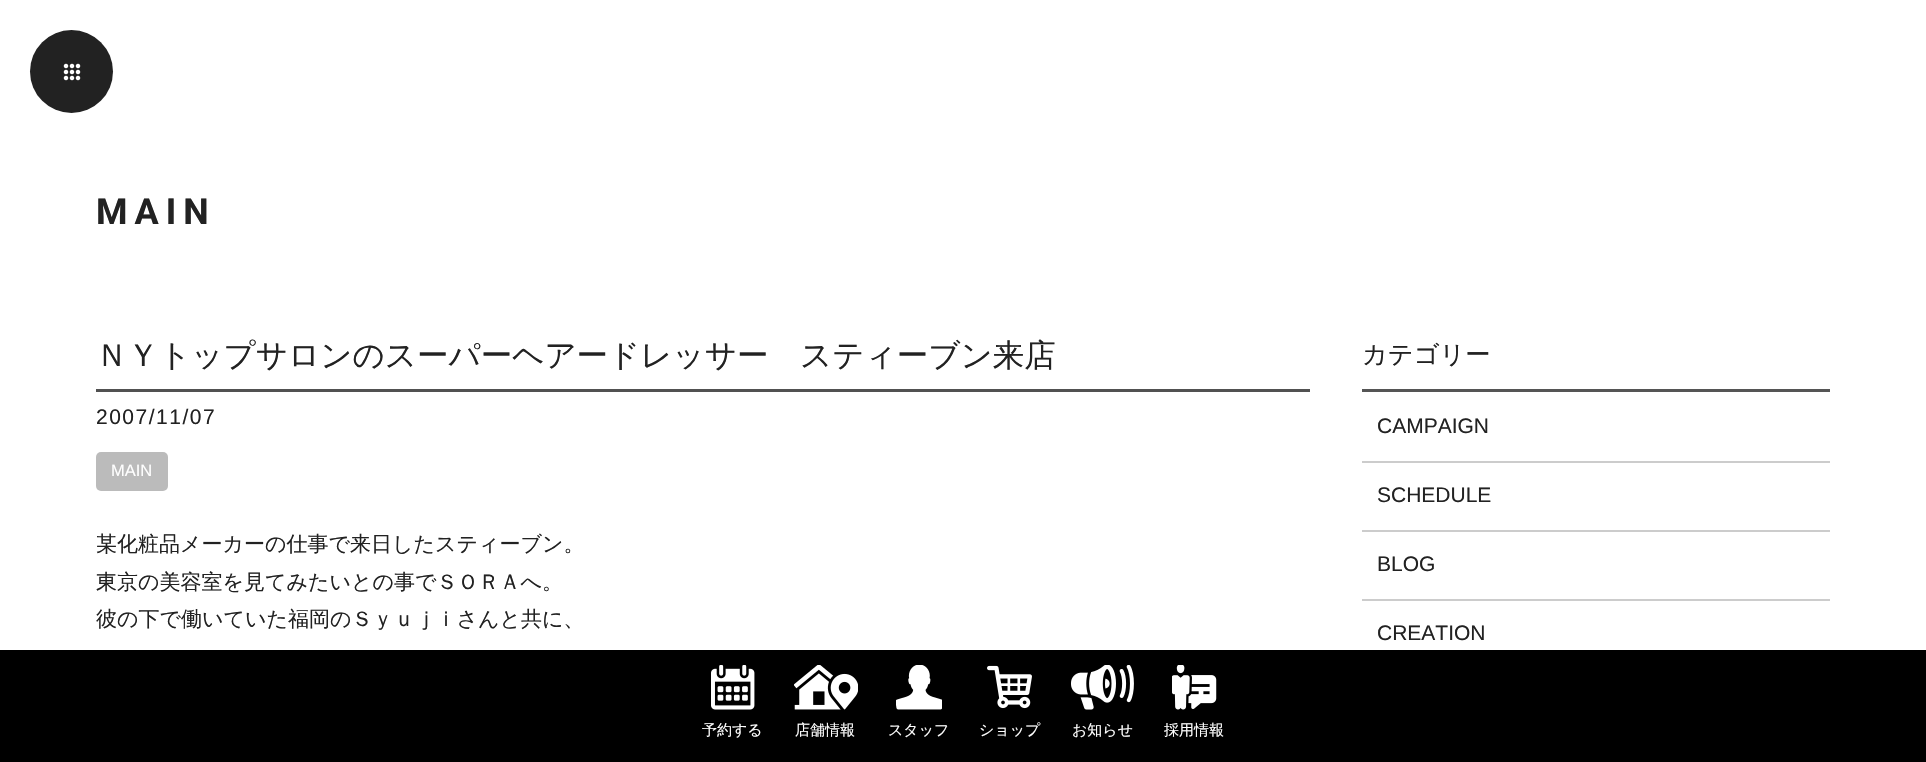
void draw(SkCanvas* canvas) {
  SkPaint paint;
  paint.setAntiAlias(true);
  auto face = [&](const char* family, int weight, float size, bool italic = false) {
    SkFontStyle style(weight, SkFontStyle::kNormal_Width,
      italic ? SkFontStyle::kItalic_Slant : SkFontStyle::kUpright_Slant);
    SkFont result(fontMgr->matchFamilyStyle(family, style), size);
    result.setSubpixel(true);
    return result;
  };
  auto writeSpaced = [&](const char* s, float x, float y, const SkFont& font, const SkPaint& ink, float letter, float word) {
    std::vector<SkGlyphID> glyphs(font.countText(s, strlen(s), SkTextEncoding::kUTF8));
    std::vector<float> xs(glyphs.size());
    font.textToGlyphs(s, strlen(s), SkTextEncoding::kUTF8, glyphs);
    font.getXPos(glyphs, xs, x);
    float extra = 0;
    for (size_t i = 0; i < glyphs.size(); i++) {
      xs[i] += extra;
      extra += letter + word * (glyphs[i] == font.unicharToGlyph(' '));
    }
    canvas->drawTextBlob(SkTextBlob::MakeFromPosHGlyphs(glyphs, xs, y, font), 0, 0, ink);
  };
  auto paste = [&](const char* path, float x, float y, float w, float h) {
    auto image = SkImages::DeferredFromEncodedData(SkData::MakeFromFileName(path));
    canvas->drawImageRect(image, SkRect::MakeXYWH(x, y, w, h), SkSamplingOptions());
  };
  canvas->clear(0xffffffff);
  paint.setColor(0xff222222);
  canvas->drawCircle(71.5f, 71.5f, 41.5f, paint);
  paste("img/1.png", 63, 63, 18, 18);
  paint.setColor(0xff515151);
  canvas->drawRect(SkRect::MakeXYWH(96, 389, 1214, 3), paint);
  paint.setColor(0xffbbbbbb);
  canvas->drawRoundRect(SkRect::MakeXYWH(96, 452, 72, 39), 5, 5, paint);
  {
    const struct { float x, y, w, h; SkColor color; } items[] = {
      {1362, 389, 468, 3, 0xff555555},
      {1362, 461, 468, 2, 0xffcccccc},
      {1362, 530, 468, 2, 0xffcccccc},
      {1362, 599, 468, 2, 0xffcccccc},
      {0, 650, 1926, 112, 0xff000000},
    };
    for (auto [x, y, w, h, color] : items) {
      paint.setColor(color);
      canvas->drawRect(SkRect::MakeXYWH(x, y, w, h), paint);
    }
  }
  paste("img/2.png", 711, 665, 44, 45);
  paste("img/3.png", 794, 665, 64, 45);
  paste("img/4.png", 896, 665, 46, 45);
  paste("img/5.png", 987, 665, 45, 44);
  paste("img/6.png", 1071, 665, 63, 45);
  paste("img/7.png", 1172, 665, 45, 45);
  auto f0 = face("Roboto", 700, 36);
  paint.setColor(0xff222222);
  writeSpaced("MAIN", 96, 224, f0, paint, 7, 0);
  auto f1 = face("WenQuanYi Zen Hei", 500, 31.5f);
  canvas->drawString("ＮＹトップサロンのスーパーヘアードレッサー　スティーブン来店", 96, 366, f1, paint);
  auto f2 = face("Liberation Sans", 400, 21);
  writeSpaced("2007/11/07", 96, 424, f2, paint, 1.5f, 0);
  auto f3 = face("Liberation Sans", 400, 16.5f);
  paint.setColor(0xffffffff);
  canvas->drawString("MAIN", 111, 476, f3, paint);
  auto f4 = face("WenQuanYi Zen Hei", 500, 21);
  paint.setColor(0xff222222);
  {
    const struct { const char* s; float x, y; } items[] = {
      {"某化粧品メーカーの仕事で来日したスティーブン。", 96, 551},
      {"東京の美容室を見てみたいとの事でＳＯＲＡへ。", 96, 589},
      {"彼の下で働いていた福岡のＳｙｕｊｉさんと共に、", 96, 626},
    };
    for (auto [s, x, y] : items) {
      canvas->drawString(s, x, y, f4, paint);
    }
  }
  auto f5 = face("WenQuanYi Zen Hei", 500, 25.25f);
  canvas->drawString("カテゴリー", 1362, 363, f5, paint);
  {
    const struct { const char* s; float x, y; } items[] = {
      {"CAMPAIGN", 1377, 433},
      {"SCHEDULE", 1377, 502},
      {"BLOG", 1377, 571},
      {"CREATION", 1377, 640},
    };
    for (auto [s, x, y] : items) {
      canvas->drawString(s, x, y, f2, paint);
    }
  }
  auto f6 = face("WenQuanYi Zen Hei", 500, 15);
  paint.setColor(0xffffffff);
  {
    const struct { const char* s; float x, y; } items[] = {
      {"予約する", 702, 735},
      {"店舗情報", 795, 735},
      {"スタッフ", 888, 735},
      {"ショップ", 979, 735},
      {"お知らせ", 1072, 735},
      {"採用情報", 1164, 735},
    };
    for (auto [s, x, y] : items) {
      canvas->drawString(s, x, y, f6, paint);
    }
  }
}
